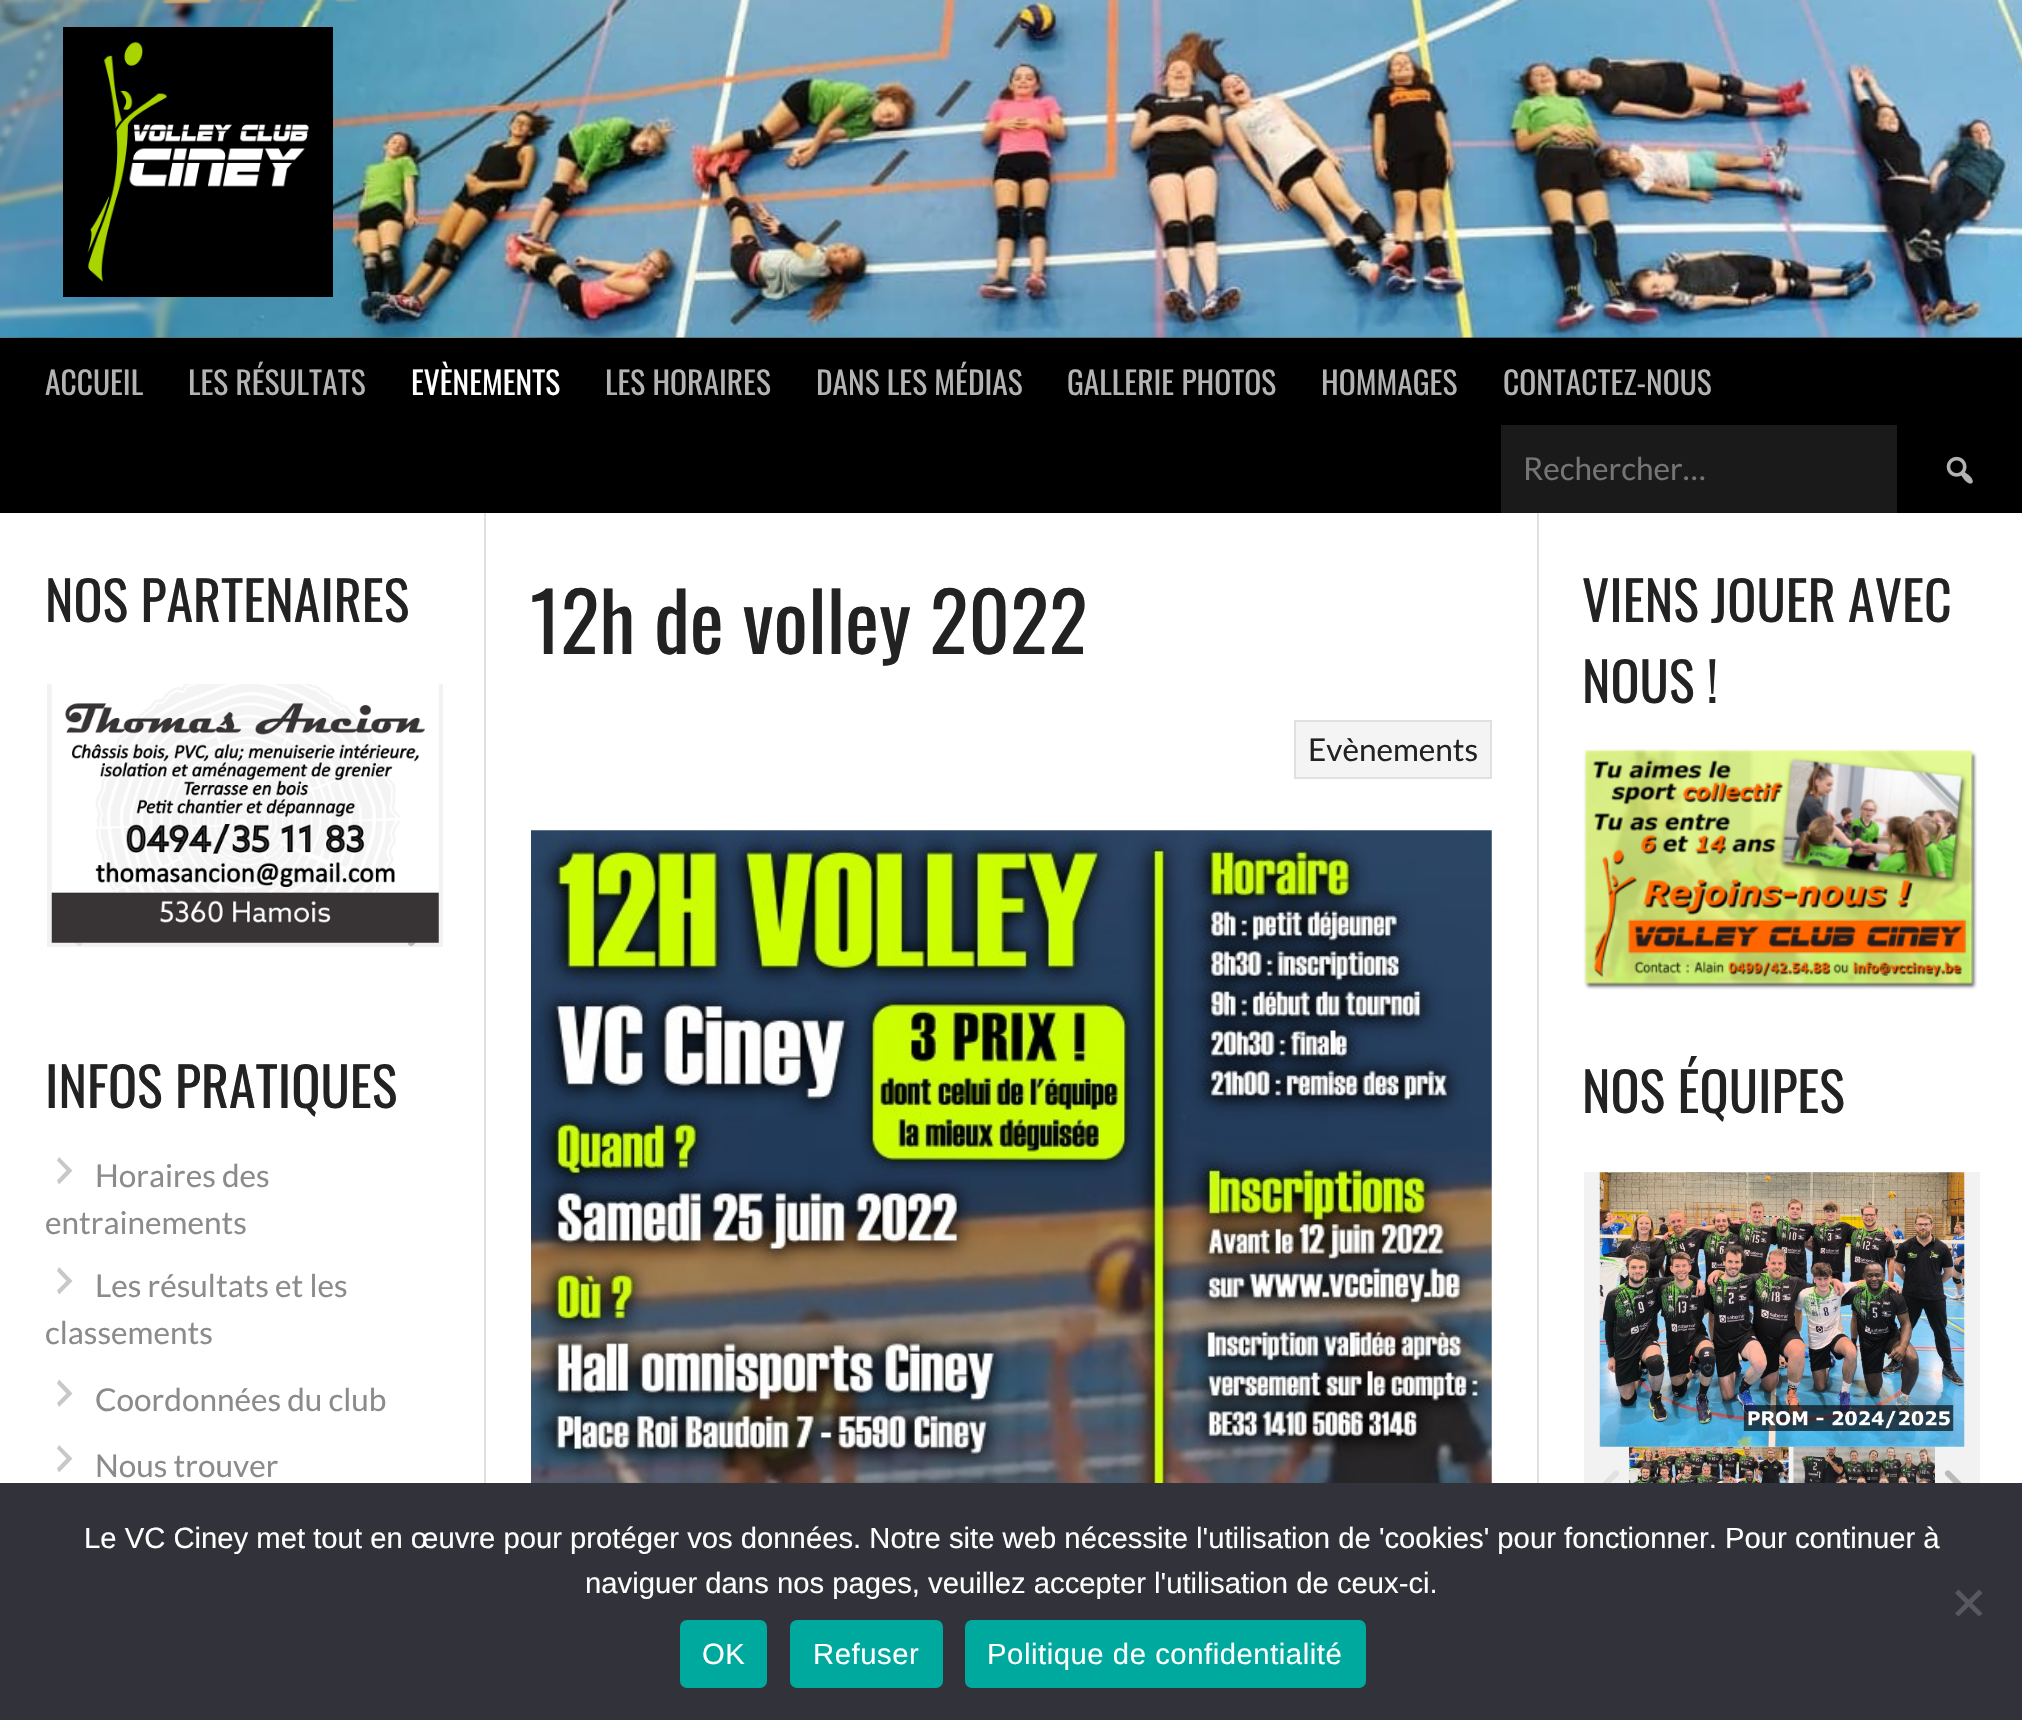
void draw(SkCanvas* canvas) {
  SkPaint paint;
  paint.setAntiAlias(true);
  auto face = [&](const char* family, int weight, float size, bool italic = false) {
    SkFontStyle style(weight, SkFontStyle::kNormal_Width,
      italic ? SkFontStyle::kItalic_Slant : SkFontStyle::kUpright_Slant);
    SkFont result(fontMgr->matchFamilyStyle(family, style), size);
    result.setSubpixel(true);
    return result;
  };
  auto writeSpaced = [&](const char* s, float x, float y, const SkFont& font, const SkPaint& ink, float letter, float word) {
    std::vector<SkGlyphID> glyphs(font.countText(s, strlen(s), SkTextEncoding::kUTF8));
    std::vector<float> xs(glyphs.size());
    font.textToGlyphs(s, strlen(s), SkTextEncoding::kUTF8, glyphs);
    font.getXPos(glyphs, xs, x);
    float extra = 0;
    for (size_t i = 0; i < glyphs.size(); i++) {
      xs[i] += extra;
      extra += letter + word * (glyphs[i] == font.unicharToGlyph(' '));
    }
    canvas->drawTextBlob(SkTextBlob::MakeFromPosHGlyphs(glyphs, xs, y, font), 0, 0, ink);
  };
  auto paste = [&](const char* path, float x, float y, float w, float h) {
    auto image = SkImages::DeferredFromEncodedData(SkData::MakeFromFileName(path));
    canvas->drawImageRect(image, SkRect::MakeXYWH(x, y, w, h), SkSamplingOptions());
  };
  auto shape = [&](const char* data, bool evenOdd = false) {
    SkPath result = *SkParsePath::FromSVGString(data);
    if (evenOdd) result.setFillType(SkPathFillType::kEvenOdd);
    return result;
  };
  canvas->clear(0xffffffff);
  paste("img/1.png", 0, 0, 2022, 338);
  paste("img/2.png", 0, 0, 2022, 338);
  canvas->save();
  canvas->clipPath(shape("M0 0H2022V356H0ZM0 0H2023V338H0Z", true), true);
  paint.setColor(0x33000000);
  paint.setMaskFilter(SkMaskFilter::MakeBlur(kNormal_SkBlurStyle, 3.5f));
  canvas->drawRect(SkRect::MakeXYWH(0, 7, 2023, 337), paint);
  paint.setMaskFilter(nullptr);
  canvas->restore();
  paste("img/3.png", 63, 27, 270, 270);
  paint.setColor(0xff000000);
  canvas->drawRect(SkRect::MakeXYWH(0, 338, 2022, 175), paint);
  paint.setColor(0xff1a1a1a);
  canvas->drawRect(SkRect::MakeXYWH(1501, 425, 396, 88), paint);
  paste("img/4.png", 1946, 456, 27, 28);
  paint.setColor(0xffe0e0e0);
  canvas->drawRect(SkRect::MakeXYWH(484, 513, 2, 970), paint);
  paint.setColor(0xfff2f2f2);
  canvas->drawRect(SkRect::MakeXYWH(47, 684, 396, 263), paint);
  paste("img/6.png", 74, 942, 9, 4);
  paste("img/7.png", 408, 942, 9, 5);
  paste("img/5.png", 51, 684, 388, 259);
  paint.setColor(0xffc8c8c8);
  canvas->drawPath(shape("M57 1180.5L66.5 1170.5L57 1160.5L59 1157L72.5 1170.5L59 1184.5Z"), paint);
  canvas->drawPath(shape("M57 1290.5L66.5 1281L57 1271L59 1267L72.5 1281L59 1294.5Z"), paint);
  canvas->drawPath(shape("M57 1403L66.5 1393.5L57 1383.5L59 1379.5L72.5 1393.5L59 1407Z"), paint);
  canvas->drawPath(shape("M57 1468.5L66.5 1458.5L57 1448.5L59 1445L72.5 1458.5L59 1472.5Z"), paint);
  paint.setColor(0xffe0e0e0);
  canvas->drawRect(SkRect::MakeXYWH(1537, 513, 2, 970), paint);
  paint.setColor(0xfff4f4f4);
  canvas->drawRect(SkRect::MakeXYWH(1295, 721, 196, 57), paint);
  paint.setStroke(true);
  paint.setStrokeWidth(2);
  paint.setColor(0xffe0e0e0);
  canvas->drawRect(SkRect::MakeXYWH(1295, 721, 196, 57), paint);
  paste("img/8.png", 531, 830, 961, 653);
  paste("img/9.png", 1583, 749, 394, 241);
  paint.setStroke(false);
  paint.setColor(0xfff2f2f2);
  canvas->drawRect(SkRect::MakeXYWH(1584, 1172, 396, 311), paint);
  paste("img/12.png", 1629, 1446, 160, 37);
  paste("img/13.png", 1793, 1446, 142, 37);
  paste("img/10.png", 1599, 1172, 366, 275);
  paste("img/11.png", 1602, 1470, 17, 13);
  paste("img/14.png", 1944, 1470, 18, 13);
  paint.setColor(0xff32323a);
  canvas->drawRect(SkRect::MakeXYWH(0, 1483, 2022, 237), paint);
  paint.setColor(0xff59595d);
  canvas->drawPath(shape("M1979 1589.5L1982.5 1593L1958.5 1616.5L1955 1613.5Z"), paint);
  canvas->drawPath(shape("M1955 1593L1958.5 1589.5L1982.5 1613.5L1979 1616.5Z"), paint);
  paint.setColor(0xff00a99d);
  canvas->drawRoundRect(SkRect::MakeXYWH(680, 1620, 87, 68), 7, 7, paint);
  canvas->drawRoundRect(SkRect::MakeXYWH(790, 1620, 153, 68), 7, 7, paint);
  canvas->drawRoundRect(SkRect::MakeXYWH(965, 1620, 401, 68), 7, 7, paint);
  auto f0 = face("Oswald", 400, 31.5f);
  paint.setColor(0xffb3b3b3);
  canvas->drawString("ACCUEIL", 45, 395, f0, paint);
  canvas->drawString("LES RÉSULTATS", 188, 395, f0, paint);
  paint.setColor(0xffffffff);
  canvas->drawString("EVÈNEMENTS", 411, 395, f0, paint);
  paint.setColor(0xffb3b3b3);
  {
    const struct { const char* s; float x, y; } items[] = {
      {"LES HORAIRES", 605, 395},
      {"DANS LES MÉDIAS", 816, 395},
      {"GALLERIE PHOTOS", 1067, 395},
      {"HOMMAGES", 1321, 395},
      {"CONTACTEZ-NOUS", 1503, 395},
    };
    for (auto [s, x, y] : items) {
      canvas->drawString(s, x, y, f0, paint);
    }
  }
  auto f1 = face("Lato", 400, 31.5f);
  paint.setColor(0xff757575);
  canvas->drawString("Rechercher…", 1523, 480, f1, paint);
  auto f2 = face("Oswald", 400, 54);
  paint.setColor(0xff222222);
  canvas->drawString("NOS PARTENAIRES", 45, 622, f2, paint);
  canvas->drawString("INFOS PRATIQUES", 45, 1108, f2, paint);
  paint.setColor(0xff8b8b8b);
  {
    const struct { const char* s; float x, y; } items[] = {
      {"Horaires des", 95, 1187},
      {"entrainements", 45, 1234},
      {"Les résultats et les", 95, 1297},
      {"classements", 45, 1344},
      {"Coordonnées du club", 95, 1411},
      {"Nous trouver", 95, 1477},
    };
    for (auto [s, x, y] : items) {
      canvas->drawString(s, x, y, f1, paint);
    }
  }
  auto f3 = face("Oswald", 400, 81);
  paint.setColor(0xff222222);
  canvas->drawString("12h de volley 2022", 530, 654, f3, paint);
  canvas->drawString("Evènements", 1308, 761, f1, paint);
  {
    const struct { const char* s; float x, y; } items[] = {
      {"VIENS JOUER AVEC", 1582, 622},
      {"NOUS !", 1582, 703},
      {"NOS ÉQUIPES", 1582, 1113},
    };
    for (auto [s, x, y] : items) {
      canvas->drawString(s, x, y, f2, paint);
    }
  }
  auto f4 = face("Liberation Sans", 400, 29.25f);
  paint.setColor(0xffffffff);
  canvas->drawString("Le VC Ciney met tout en œuvre pour protéger vos données. Notre site web nécessite l'utilisation de 'cookies' pour fonctionner. Pour continuer à", 84, 1548, f4, paint);
  canvas->drawString("naviguer dans nos pages, veuillez accepter l'utilisation de ceux-ci.", 585, 1593, f4, paint);
  {
    const struct { const char* s; float x, y; } items[] = {
      {"OK", 702, 1664},
      {"Refuser", 813, 1664},
      {"Politique de confidentialité", 987, 1664},
    };
    for (auto [s, x, y] : items) {
      writeSpaced(s, x, y, f4, paint, 0.55f, 0);
    }
  }
}
